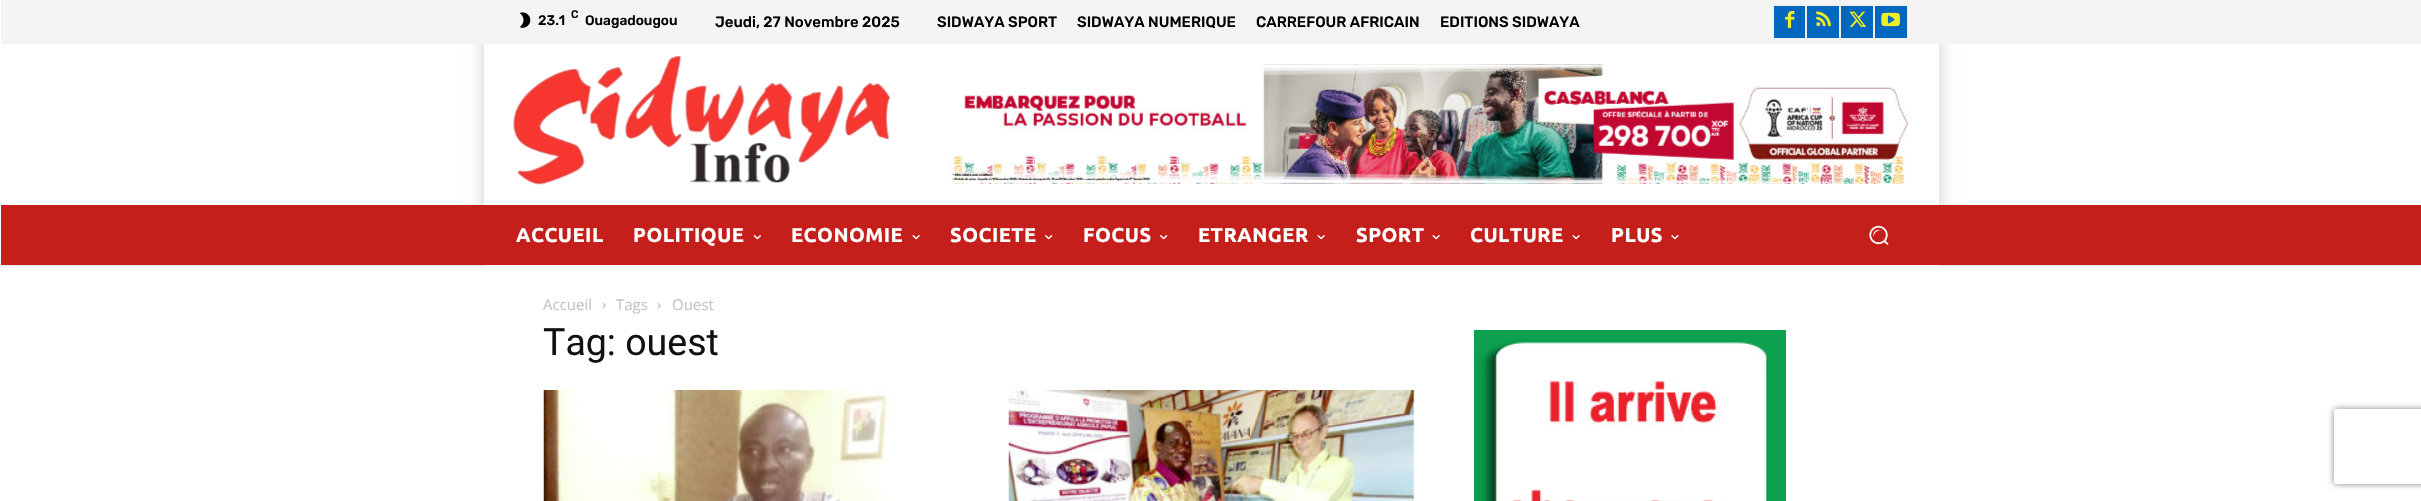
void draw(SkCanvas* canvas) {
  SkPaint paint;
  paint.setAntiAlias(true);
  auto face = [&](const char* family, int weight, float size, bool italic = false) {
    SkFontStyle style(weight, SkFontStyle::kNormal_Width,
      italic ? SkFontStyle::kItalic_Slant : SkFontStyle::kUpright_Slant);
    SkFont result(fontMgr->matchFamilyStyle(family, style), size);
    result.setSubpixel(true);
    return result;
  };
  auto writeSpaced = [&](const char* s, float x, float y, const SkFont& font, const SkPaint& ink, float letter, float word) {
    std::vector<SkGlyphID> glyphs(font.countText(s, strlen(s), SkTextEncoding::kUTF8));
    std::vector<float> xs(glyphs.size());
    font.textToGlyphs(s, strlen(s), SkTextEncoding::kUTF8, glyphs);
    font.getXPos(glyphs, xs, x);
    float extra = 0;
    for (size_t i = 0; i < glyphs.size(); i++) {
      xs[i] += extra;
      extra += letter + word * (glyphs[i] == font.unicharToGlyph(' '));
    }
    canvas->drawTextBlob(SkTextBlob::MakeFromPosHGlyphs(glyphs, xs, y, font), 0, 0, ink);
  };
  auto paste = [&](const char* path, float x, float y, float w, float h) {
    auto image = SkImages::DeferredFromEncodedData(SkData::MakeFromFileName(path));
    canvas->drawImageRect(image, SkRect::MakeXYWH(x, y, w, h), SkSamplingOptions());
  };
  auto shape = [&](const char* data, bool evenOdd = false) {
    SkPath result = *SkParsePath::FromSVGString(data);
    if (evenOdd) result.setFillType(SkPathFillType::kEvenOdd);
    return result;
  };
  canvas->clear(0xffffffff);
  paint.setColor(0x1f000000);
  paint.setMaskFilter(SkMaskFilter::MakeBlur(kNormal_SkBlurStyle, 6));
  canvas->drawRect(SkRect::MakeXYWH(-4, 263, 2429, 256), paint);
  paint.setMaskFilter(nullptr);
  paint.setColor(0xffffffff);
  canvas->drawRect(SkRect::MakeXYWH(0, 266, 2421, 235), paint);
  paint.setColor(0x1f000000);
  paint.setMaskFilter(SkMaskFilter::MakeBlur(kNormal_SkBlurStyle, 6));
  canvas->drawRect(SkRect::MakeXYWH(480, -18, 1463, 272), paint);
  paint.setMaskFilter(nullptr);
  paint.setColor(0xfff4f4f4);
  canvas->drawRect(SkRect::MakeXYWH(1, 0, 2420, 44), paint);
  paste("img/1.png", 519, 12, 12, 16);
  paint.setColor(0xff0367bf);
  canvas->drawRect(SkRect::MakeXYWH(1773.5f, 5.5f, 32, 33), paint);
  paint.setStroke(true);
  paint.setStrokeWidth(1);
  paint.setColor(0xffededed);
  canvas->drawRect(SkRect::MakeXYWH(1773.5f, 5.5f, 32, 33), paint);
  paste("img/2.png", 1785, 11, 10, 17);
  paint.setStroke(false);
  paint.setColor(0xff0367bf);
  canvas->drawRect(SkRect::MakeXYWH(1806.5f, 5.5f, 33, 33), paint);
  paint.setStroke(true);
  paint.setColor(0xffededed);
  canvas->drawRect(SkRect::MakeXYWH(1806.5f, 5.5f, 33, 33), paint);
  paste("img/3.png", 1816, 11, 15, 16);
  paint.setStroke(false);
  paint.setColor(0xff0367bf);
  canvas->drawRect(SkRect::MakeXYWH(1840.5f, 5.5f, 33, 33), paint);
  paint.setStroke(true);
  paint.setColor(0xffededed);
  canvas->drawRect(SkRect::MakeXYWH(1840.5f, 5.5f, 33, 33), paint);
  paste("img/4.png", 1849, 11, 18, 16);
  paint.setStroke(false);
  paint.setColor(0xff0367bf);
  canvas->drawRect(SkRect::MakeXYWH(1874.5f, 5.5f, 33, 33), paint);
  paint.setStroke(true);
  paint.setColor(0xffededed);
  canvas->drawRect(SkRect::MakeXYWH(1874.5f, 5.5f, 33, 33), paint);
  paste("img/5.png", 1881, 12, 19, 15);
  paint.setStroke(false);
  paint.setColor(0xffffffff);
  canvas->drawRect(SkRect::MakeXYWH(484, 44, 1455, 222), paint);
  paste("img/6.png", 513, 56, 378, 129);
  paste("img/7.png", 950, 64, 958, 120);
  paint.setColor(0xffc51f1c);
  canvas->drawRect(SkRect::MakeXYWH(1, 205, 2420, 60), paint);
  paste("img/8.png", 753, 235, 8, 5);
  paste("img/9.png", 912, 235, 8, 5);
  paste("img/10.png", 1045, 235, 8, 5);
  paste("img/10.png", 1160, 235, 8, 5);
  paste("img/9.png", 1317, 235, 8, 5);
  paste("img/9.png", 1432, 235, 8, 5);
  paste("img/9.png", 1572, 235, 8, 5);
  paste("img/11.png", 1671, 235, 8, 5);
  paste("img/12.png", 1869, 225, 20, 20);
  paste("img/13.png", 602, 303, 4, 6);
  paste("img/13.png", 657, 303, 4, 6);
  paste("img/14.png", 543, 390, 350, 111);
  paste("img/15.png", 1008, 390, 406, 111);
  paste("img/16.png", 1474, 330, 312, 171);
  canvas->save();
  canvas->clipPath(shape("M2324 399H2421V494H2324ZM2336.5 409H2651.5C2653 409 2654 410 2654 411.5V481.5C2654 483 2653 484 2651.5 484H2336.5C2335 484 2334 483 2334 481.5V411.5C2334 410 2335 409 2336.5 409Z", true), true);
  paint.setColor(0xff808080);
  paint.setMaskFilter(SkMaskFilter::MakeBlur(kNormal_SkBlurStyle, 3));
  canvas->drawRoundRect(SkRect::MakeXYWH(2334, 409, 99, 75), 2.5f, 2.5f, paint);
  paint.setMaskFilter(nullptr);
  canvas->restore();
  auto f0 = face("Rubik", 500, 13.75f);
  paint.setColor(0xff000000);
  canvas->drawString("23.1", 538, 25, f0, paint);
  auto f1 = face("Rubik", 500, 11);
  canvas->drawString("C", 571, 18, f1, paint);
  canvas->drawString("Ouagadougou", 585, 25, f0, paint);
  auto f2 = face("Rubik", 500, 15);
  {
    const struct { const char* s; float x, y; } items[] = {
      {"Jeudi, 27 Novembre 2025", 715, 27},
      {"SIDWAYA SPORT", 937, 27},
      {"SIDWAYA NUMERIQUE", 1077, 27},
      {"CARREFOUR AFRICAIN", 1256, 27},
      {"EDITIONS SIDWAYA", 1440, 27},
    };
    for (auto [s, x, y] : items) {
      canvas->drawString(s, x, y, f2, paint);
    }
  }
  auto f3 = face("Ubuntu", 700, 20);
  paint.setColor(0xffffffff);
  {
    const struct { const char* s; float x, y; } items[] = {
      {"ACCUEIL", 516, 242},
      {"POLITIQUE", 633, 242},
      {"ECONOMIE", 791, 242},
      {"SOCIETE", 950, 242},
      {"FOCUS", 1083, 242},
      {"ETRANGER", 1198, 242},
      {"SPORT", 1356, 242},
      {"CULTURE", 1470, 242},
      {"PLUS", 1611, 242},
    };
    for (auto [s, x, y] : items) {
      writeSpaced(s, x, y, f3, paint, 0.5f, 0);
    }
  }
  auto f4 = face("Open Sans", 400, 15);
  paint.setColor(0xffc3c3c3);
  {
    const struct { const char* s; float x, y; } items[] = {
      {"Accueil", 543, 310},
      {"Tags", 616, 310},
      {"Ouest", 672, 310},
    };
    for (auto [s, x, y] : items) {
      canvas->drawString(s, x, y, f4, paint);
    }
  }
  auto f5 = face("Roboto", 400, 37.5f);
  paint.setColor(0xff111111);
  canvas->drawString("Tag: ouest", 543, 355, f5, paint);
}
